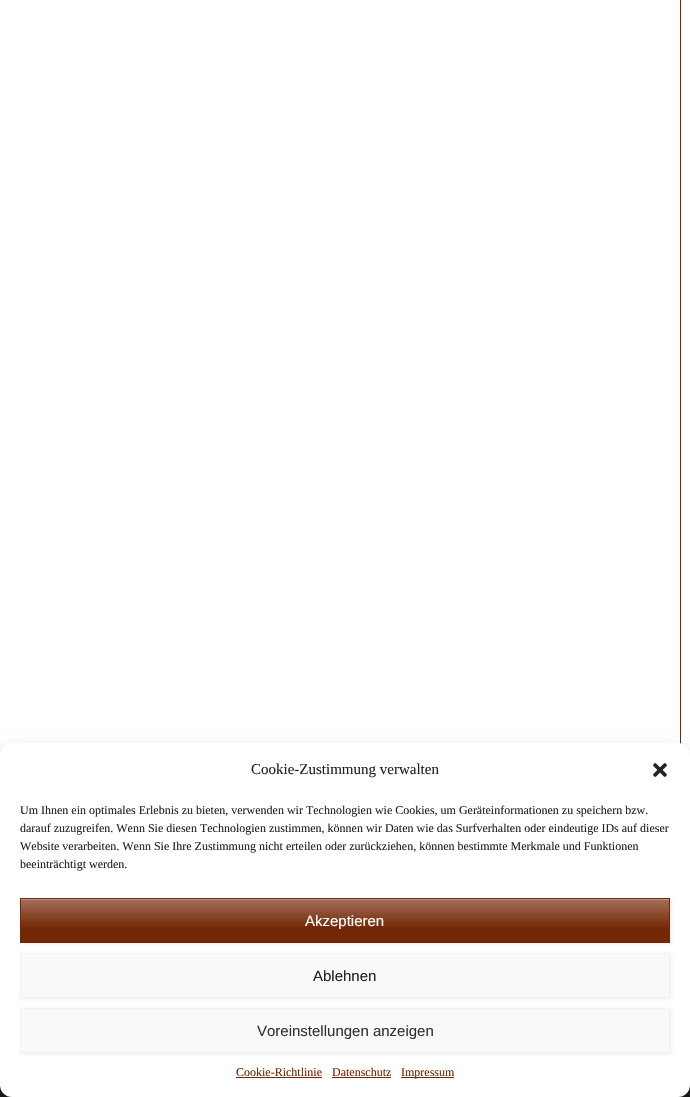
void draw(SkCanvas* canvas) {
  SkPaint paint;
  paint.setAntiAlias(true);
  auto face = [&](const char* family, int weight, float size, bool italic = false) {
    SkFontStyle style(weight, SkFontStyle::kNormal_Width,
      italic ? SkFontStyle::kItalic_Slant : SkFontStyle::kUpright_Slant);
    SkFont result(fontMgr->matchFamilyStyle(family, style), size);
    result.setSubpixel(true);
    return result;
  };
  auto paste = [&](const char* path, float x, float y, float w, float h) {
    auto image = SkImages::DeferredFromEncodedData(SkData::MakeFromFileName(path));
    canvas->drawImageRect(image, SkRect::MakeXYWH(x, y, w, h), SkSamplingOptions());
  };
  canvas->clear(0xffffffff);
  paint.setColor(0xff732706);
  canvas->drawRect(SkRect::MakeXYWH(680, 0, 1, 744), paint);
  paint.setColor(0xff202020);
  canvas->drawRect(SkRect::MakeXYWH(0, 1085, 690, 12), paint);
  paint.setColor(0x3b000000);
  paint.setMaskFilter(SkMaskFilter::MakeBlur(kNormal_SkBlurStyle, 3));
  canvas->drawRoundRect(SkRect::MakeXYWH(0, 749, 690, 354), 12, 12, paint);
  paint.setMaskFilter(nullptr);
  paint.setColor(0x30000000);
  paint.setMaskFilter(SkMaskFilter::MakeBlur(kNormal_SkBlurStyle, 10));
  canvas->drawRoundRect(SkRect::MakeXYWH(0, 753, 690, 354), 12, 12, paint);
  paint.setMaskFilter(nullptr);
  paint.setColor(0xffffffff);
  canvas->drawRoundRect(SkRect::MakeXYWH(0, 743, 690, 354), 12, 12, paint);
  paste("img/1.png", 653, 763, 14, 14);
  paint.setColor(0xffececec);
  paint.setMaskFilter(SkMaskFilter::MakeBlur(kNormal_SkBlurStyle, 1.5f));
  canvas->drawRect(SkRect::MakeXYWH(21, 899, 650, 45), paint);
  paint.setMaskFilter(nullptr);
  paint.setColor(0xff732706);
  canvas->drawRect(SkRect::MakeXYWH(21, 899, 648, 43), paint);
  paste("img/2.png", 21, 899, 648, 28);
  paint.setStroke(true);
  paint.setStrokeWidth(1);
  canvas->drawRect(SkRect::MakeXYWH(20.5f, 898.5f, 649, 44), paint);
  paint.setStroke(false);
  paint.setColor(0xffececec);
  paint.setMaskFilter(SkMaskFilter::MakeBlur(kNormal_SkBlurStyle, 1.5f));
  canvas->drawRect(SkRect::MakeXYWH(21, 954, 650, 45), paint);
  paint.setMaskFilter(nullptr);
  paint.setColor(0xfff9f9f9);
  canvas->drawRect(SkRect::MakeXYWH(20.5f, 953.5f, 649, 44), paint);
  paint.setStroke(true);
  paint.setColor(0xfff2f2f2);
  canvas->drawRect(SkRect::MakeXYWH(20.5f, 953.5f, 649, 44), paint);
  paint.setStroke(false);
  paint.setColor(0xffececec);
  paint.setMaskFilter(SkMaskFilter::MakeBlur(kNormal_SkBlurStyle, 1.5f));
  canvas->drawRect(SkRect::MakeXYWH(21, 1009, 650, 45), paint);
  paint.setMaskFilter(nullptr);
  paint.setColor(0xfff9f9f9);
  canvas->drawRect(SkRect::MakeXYWH(20.5f, 1008.5f, 649, 44), paint);
  paint.setStroke(true);
  paint.setColor(0xfff2f2f2);
  canvas->drawRect(SkRect::MakeXYWH(20.5f, 1008.5f, 649, 44), paint);
  paint.setStroke(false);
  {
    const struct { float x, y, w, h; SkColor color; } items[] = {
      {236, 1077, 86, 1, 0xff732706},
      {332, 1077, 59, 1, 0xff732706},
      {401, 1077, 53, 1, 0xff732706},
    };
    for (auto [x, y, w, h, color] : items) {
      paint.setColor(color);
      canvas->drawRect(SkRect::MakeXYWH(x, y, w, h), paint);
    }
  }
  auto f0 = face("Liberation Serif", 400, 15);
  paint.setColor(0xff222222);
  canvas->drawString("Cookie-Zustimmung verwalten", 251, 774, f0, paint);
  auto f1 = face("Liberation Serif", 400, 12);
  {
    const struct { const char* s; float x, y; } items[] = {
      {"Um Ihnen ein optimales Erlebnis zu bieten, verwenden wir Technologien wie Cookies, um Geräteinformationen zu speichern bzw.", 20, 814},
      {"darauf zuzugreifen. Wenn Sie diesen Technologien zustimmen, können wir Daten wie das Surfverhalten oder eindeutige IDs auf dieser", 20, 832},
      {"Website verarbeiten. Wenn Sie Ihre Zustimmung nicht erteilen oder zurückziehen, können bestimmte Merkmale und Funktionen", 20, 850},
      {"beeinträchtigt werden.", 20, 868},
    };
    for (auto [s, x, y] : items) {
      canvas->drawString(s, x, y, f1, paint);
    }
  }
  auto f2 = face("Liberation Sans", 400, 15);
  paint.setColor(0xffffffff);
  canvas->drawString("Akzeptieren", 305, 926, f2, paint);
  paint.setColor(0xff222222);
  canvas->drawString("Ablehnen", 313, 981, f2, paint);
  paint.setColor(0xff333333);
  canvas->drawString("Voreinstellungen anzeigen", 257, 1036, f2, paint);
  paint.setColor(0xff732706);
  {
    const struct { const char* s; float x, y; } items[] = {
      {"Cookie-Richtlinie", 236, 1076},
      {"Datenschutz", 332, 1076},
      {"Impressum", 401, 1076},
    };
    for (auto [s, x, y] : items) {
      canvas->drawString(s, x, y, f1, paint);
    }
  }
}
